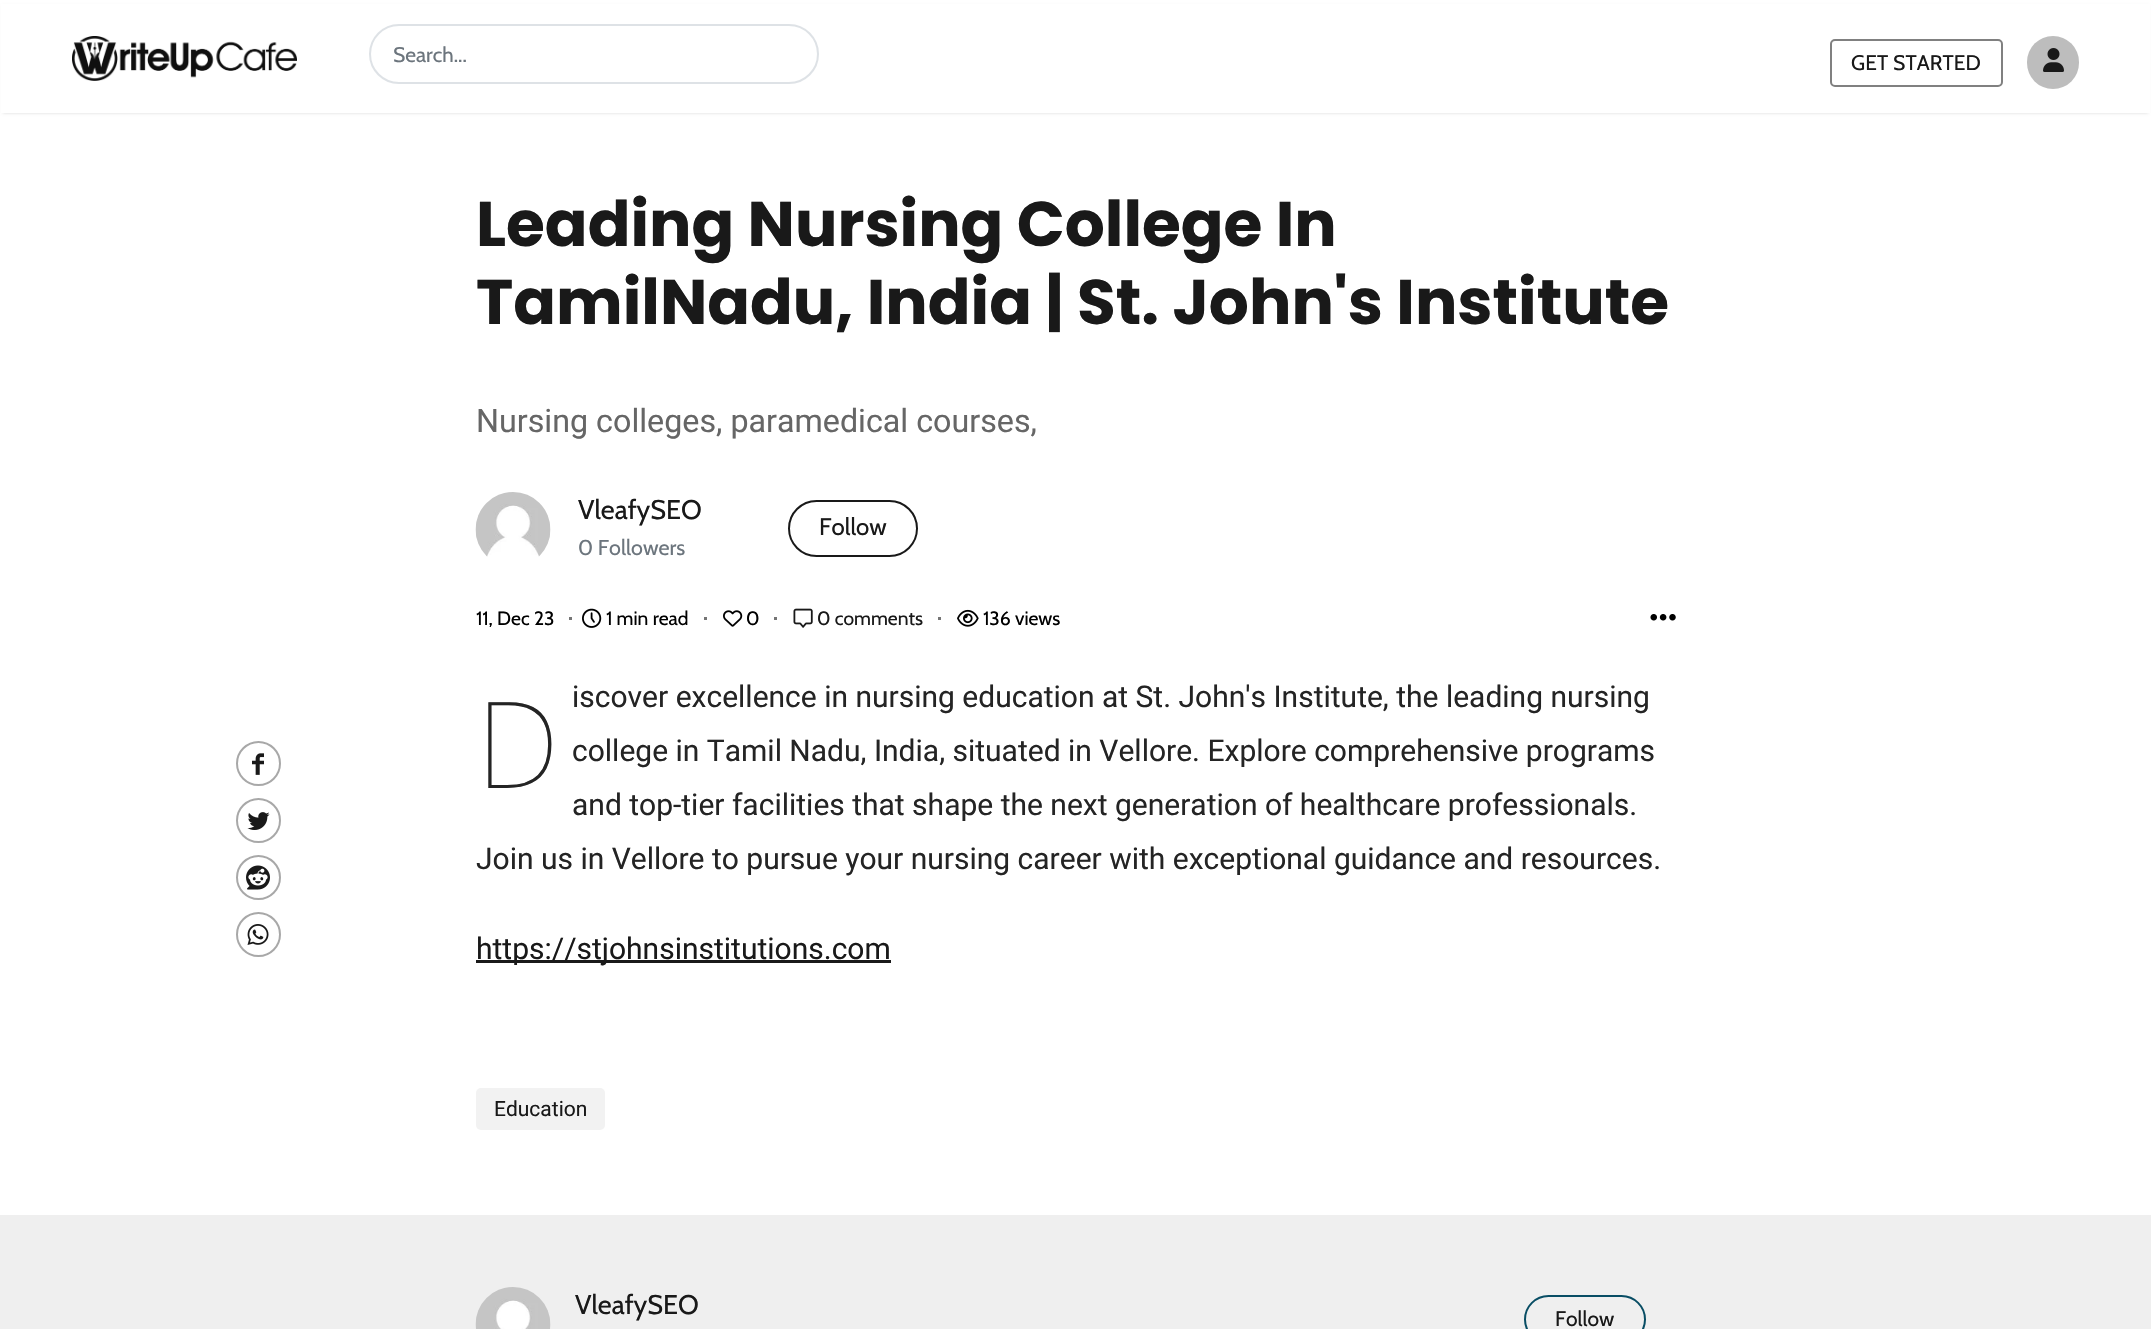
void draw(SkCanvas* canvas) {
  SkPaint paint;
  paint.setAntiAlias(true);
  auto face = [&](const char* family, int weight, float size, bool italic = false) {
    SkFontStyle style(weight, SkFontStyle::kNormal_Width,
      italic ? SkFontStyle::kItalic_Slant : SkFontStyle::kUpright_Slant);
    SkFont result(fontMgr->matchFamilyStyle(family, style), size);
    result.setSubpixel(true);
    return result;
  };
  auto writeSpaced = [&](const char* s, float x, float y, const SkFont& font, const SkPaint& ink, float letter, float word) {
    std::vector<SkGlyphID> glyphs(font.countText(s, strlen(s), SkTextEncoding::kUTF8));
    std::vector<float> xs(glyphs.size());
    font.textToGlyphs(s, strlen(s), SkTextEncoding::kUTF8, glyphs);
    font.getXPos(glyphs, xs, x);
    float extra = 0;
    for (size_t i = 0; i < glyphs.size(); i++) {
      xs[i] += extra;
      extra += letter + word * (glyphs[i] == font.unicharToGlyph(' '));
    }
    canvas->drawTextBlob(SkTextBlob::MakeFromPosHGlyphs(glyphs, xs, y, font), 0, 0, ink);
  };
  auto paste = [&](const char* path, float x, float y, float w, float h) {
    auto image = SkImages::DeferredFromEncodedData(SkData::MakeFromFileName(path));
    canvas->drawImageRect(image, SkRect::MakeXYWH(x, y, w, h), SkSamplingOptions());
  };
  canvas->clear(0xffffffff);
  paint.setColor(0x26000000);
  paint.setMaskFilter(SkMaskFilter::MakeBlur(kNormal_SkBlurStyle, 1.5f));
  canvas->drawRect(SkRect::MakeXYWH(3, 6, 2145, 107), paint);
  paint.setMaskFilter(nullptr);
  paint.setColor(0xffffffff);
  canvas->drawRect(SkRect::MakeXYWH(1, 4, 2149, 109), paint);
  paste("img/1.png", 72, 36, 225, 45);
  paint.setStroke(true);
  paint.setStrokeWidth(2);
  paint.setColor(0xffdee2e6);
  canvas->drawRoundRect(SkRect::MakeXYWH(370, 25, 448, 58), 29, 29, paint);
  paint.setColor(0xff808080);
  canvas->drawRoundRect(SkRect::MakeXYWH(1831, 40, 171, 46), 4, 4, paint);
  paint.setStroke(false);
  paint.setColor(0xffbdbdbd);
  canvas->drawRoundRect(SkRect::MakeXYWH(2027, 36, 52, 53), 26, 26, paint);
  paste("img/2.png", 2043, 48, 21, 24);
  paste("img/3.png", 475, 492, 76, 65);
  paint.setStroke(true);
  paint.setColor(0xff191919);
  canvas->drawRoundRect(SkRect::MakeXYWH(789, 501, 128, 55), 27.5f, 27.5f, paint);
  paint.setStroke(false);
  paint.setColor(0xff757575);
  canvas->drawRect(SkRect::MakeXYWH(569, 617, 3, 3), paint);
  paste("img/4.png", 582, 608, 20, 20);
  canvas->drawRect(SkRect::MakeXYWH(704, 617, 3, 3), paint);
  paste("img/5.png", 723, 610, 20, 17);
  canvas->drawRect(SkRect::MakeXYWH(774, 617, 3, 3), paint);
  paste("img/6.png", 793, 608, 20, 20);
  canvas->drawRect(SkRect::MakeXYWH(938, 617, 3, 3), paint);
  paste("img/7.png", 957, 609, 22, 18);
  paste("img/8.png", 1650, 614, 26, 7);
  paint.setStroke(true);
  paint.setColor(0xffa8a8a8);
  canvas->drawCircle(258.5f, 763.5f, 21.5f, paint);
  paste("img/9.png", 252, 753, 12, 22);
  canvas->drawCircle(258.5f, 820.5f, 21.5f, paint);
  paste("img/10.png", 247, 812, 23, 18);
  canvas->drawCircle(258.5f, 877.5f, 21.5f, paint);
  paste("img/11.png", 246, 865, 24, 25);
  canvas->drawCircle(258.5f, 934.5f, 21.5f, paint);
  paste("img/12.png", 247, 924, 22, 21);
  paint.setStroke(false);
  paint.setColor(0xff191919);
  canvas->drawRect(SkRect::MakeXYWH(476, 960, 415, 3), paint);
  paint.setColor(0xfff2f2f2);
  canvas->drawRoundRect(SkRect::MakeXYWH(476, 1088, 129, 42), 5, 5, paint);
  paint.setColor(0xffefefef);
  canvas->drawRect(SkRect::MakeXYWH(0, 1215, 2151, 114), paint);
  paste("img/13.png", 475, 1287, 76, 42);
  paint.setStroke(true);
  paint.setColor(0xff084d64);
  canvas->drawRoundRect(SkRect::MakeXYWH(1525, 1296, 120, 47), 23.5f, 23.5f, paint);
  auto f0 = face("Cabin", 400, 21);
  paint.setStroke(false);
  paint.setColor(0xff6c757d);
  canvas->drawString("Search...", 393, 62, f0, paint);
  paint.setColor(0xff191919);
  writeSpaced("GET STARTED", 1851, 70, f0, paint, 0.1f, 0);
  auto f1 = face("Poppins", 700, 63);
  canvas->drawString("Leading Nursing College In", 476, 246, f1, paint);
  canvas->drawString("TamilNadu, India | St. John's Institute", 476, 324, f1, paint);
  auto f2 = face("Roboto", 400, 32.25f);
  paint.setColor(0xff666666);
  canvas->drawString("Nursing colleges, paramedical courses,", 476, 432, f2, paint);
  auto f3 = face("Cabin", 400, 27);
  paint.setColor(0xff191919);
  canvas->drawString("VleafySEO", 578, 519, f3, paint);
  auto f4 = face("Cabin", 400, 21.5f);
  paint.setColor(0xff6c757d);
  canvas->drawString("0 Followers", 578, 555, f4, paint);
  auto f5 = face("Cabin", 400, 24);
  paint.setColor(0xff191919);
  canvas->drawString("Follow", 819, 535, f5, paint);
  auto f6 = face("Cabin", 400, 19.25f);
  paint.setColor(0xff000000);
  {
    const struct { const char* s; float x, y; } items[] = {
      {"11, Dec 23", 476, 625},
      {"1 min read", 606, 625},
      {"0", 746, 625},
    };
    for (auto [s, x, y] : items) {
      canvas->drawString(s, x, y, f6, paint);
    }
  }
  paint.setColor(0xff191919);
  canvas->drawString("0 comments", 817, 625, f6, paint);
  paint.setColor(0xff000000);
  canvas->drawString("136 views", 983, 625, f6, paint);
  auto f7 = face("Roboto", 400, 30);
  paint.setColor(0xff242424);
  canvas->drawString("iscover excellence in nursing education at St. John's Institute, the leading nursing", 572, 707, f7, paint);
  auto f8 = face("Noto Sans", 100, 120);
  canvas->drawString("D", 476, 788, f8, paint);
  {
    const struct { const char* s; float x, y; } items[] = {
      {"college in Tamil Nadu, India, situated in Vellore. Explore comprehensive programs", 572, 761},
      {"and top-tier facilities that shape the next generation of healthcare professionals.", 572, 815},
      {"Join us in Vellore to pursue your nursing career with exceptional guidance and resources.", 476, 869},
    };
    for (auto [s, x, y] : items) {
      canvas->drawString(s, x, y, f7, paint);
    }
  }
  paint.setColor(0xff191919);
  canvas->drawString("https://stjohnsinstitutions.com", 476, 959, f7, paint);
  auto f9 = face("Roboto", 400, 21);
  canvas->drawString("Education", 494, 1116, f9, paint);
  canvas->drawString("VleafySEO", 575, 1314, f3, paint);
  canvas->drawString("Follow", 1555, 1326, f0, paint);
}
